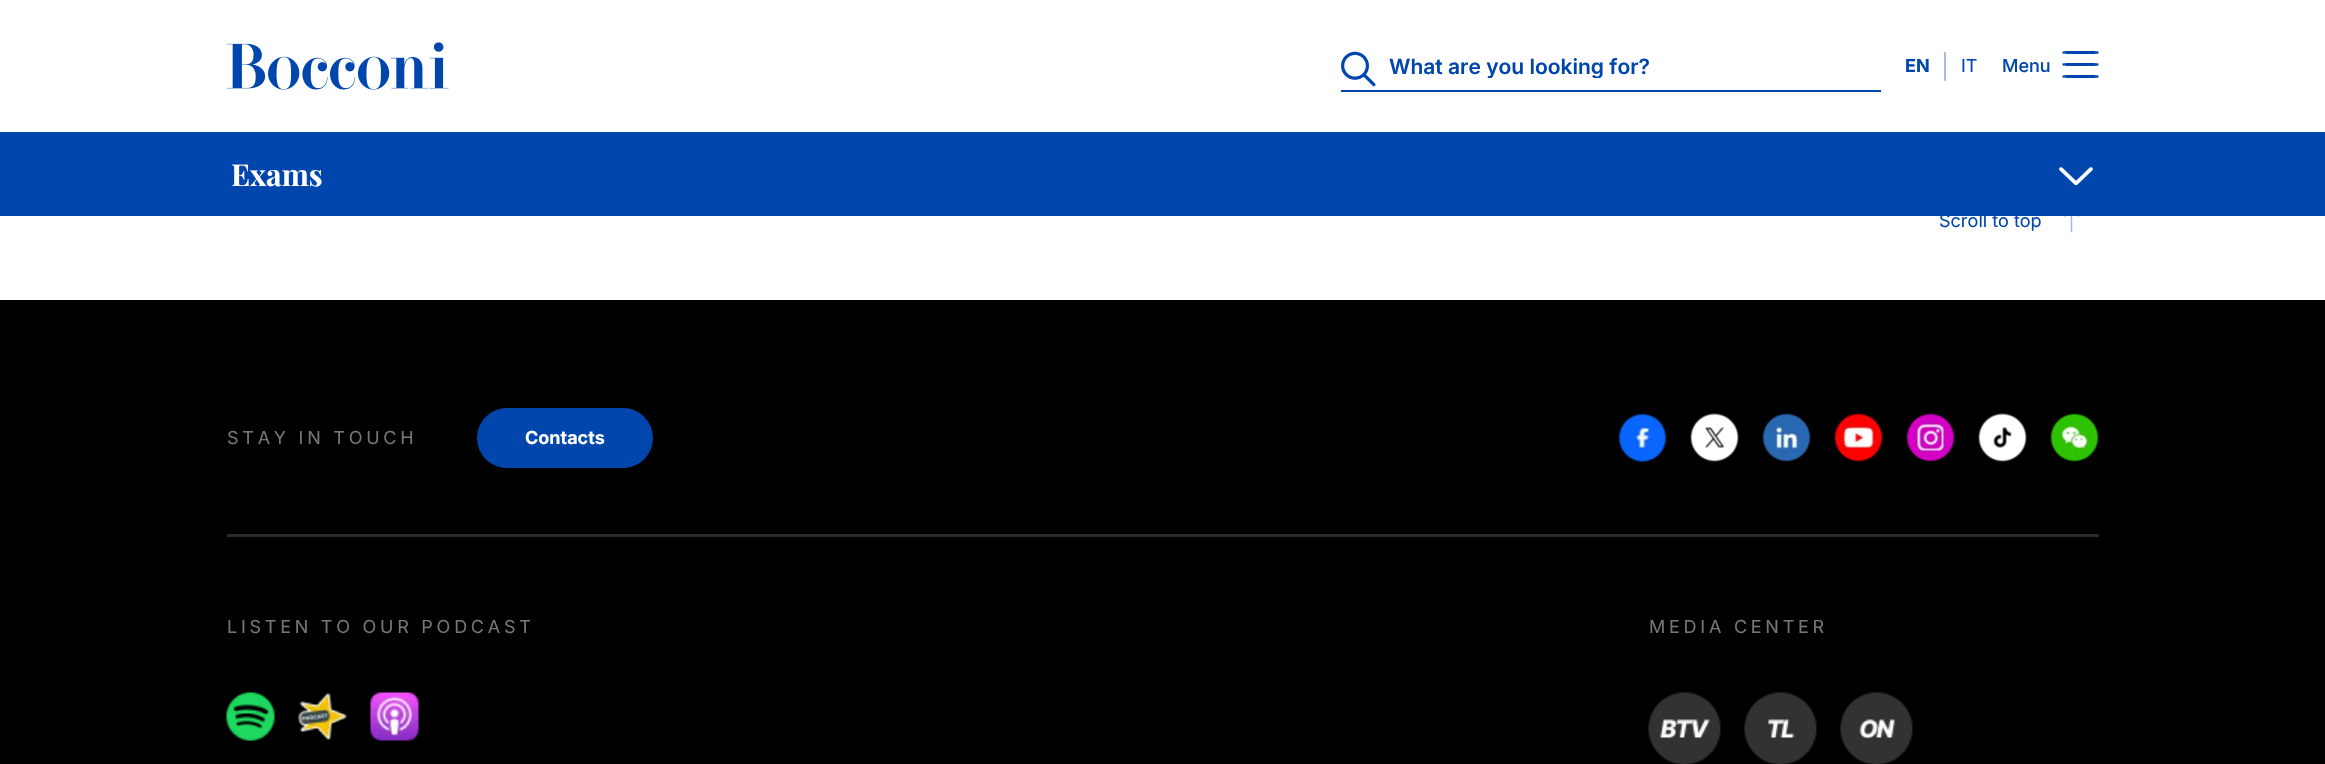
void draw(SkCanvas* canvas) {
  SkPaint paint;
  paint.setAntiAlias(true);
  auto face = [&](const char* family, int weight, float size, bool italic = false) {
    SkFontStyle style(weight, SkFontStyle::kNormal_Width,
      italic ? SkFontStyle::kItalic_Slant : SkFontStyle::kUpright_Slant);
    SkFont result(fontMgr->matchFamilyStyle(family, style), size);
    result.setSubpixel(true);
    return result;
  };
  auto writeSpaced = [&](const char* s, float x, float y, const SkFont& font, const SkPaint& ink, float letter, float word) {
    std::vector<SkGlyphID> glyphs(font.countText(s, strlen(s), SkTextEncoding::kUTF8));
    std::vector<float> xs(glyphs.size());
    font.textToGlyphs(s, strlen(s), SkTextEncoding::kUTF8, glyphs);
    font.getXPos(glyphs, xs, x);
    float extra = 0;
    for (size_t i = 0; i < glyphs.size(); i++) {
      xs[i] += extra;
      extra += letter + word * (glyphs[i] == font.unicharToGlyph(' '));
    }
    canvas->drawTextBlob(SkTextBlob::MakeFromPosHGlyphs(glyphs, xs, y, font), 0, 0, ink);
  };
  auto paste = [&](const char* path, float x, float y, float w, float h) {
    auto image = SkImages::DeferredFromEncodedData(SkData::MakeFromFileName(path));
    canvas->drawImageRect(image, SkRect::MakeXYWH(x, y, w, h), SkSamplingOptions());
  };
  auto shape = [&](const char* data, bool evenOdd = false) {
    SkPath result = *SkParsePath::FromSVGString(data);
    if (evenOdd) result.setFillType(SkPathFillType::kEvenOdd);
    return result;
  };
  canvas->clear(0xffffffff);
  paste("img/1.png", 227, 42, 222, 48);
  paint.setColor(0xff0046ad);
  canvas->drawRect(SkRect::MakeXYWH(1341, 90, 540, 2), paint);
  paste("img/2.png", 1341, 51, 35, 36);
  canvas->drawPath(shape("M2069.5 51H2091.5C2095.5 51 2098.5 51.5 2098.5 51.5V53.5C2098.5 53.5 2095.5 54 2091.5 54H2069.5C2065.5 54 2062.5 53.5 2062.5 53.5V51.5C2062.5 51.5 2065.5 51 2069.5 51ZM2069.5 63H2091.5C2095.5 63 2098.5 63.5 2098.5 63.5V65.5C2098.5 65.5 2095.5 66 2091.5 66H2069.5C2065.5 66 2062.5 65.5 2062.5 65.5V63.5C2062.5 63.5 2065.5 63 2069.5 63ZM2069.5 75H2091.5C2095.5 75 2098.5 75.5 2098.5 75.5V77.5C2098.5 77.5 2095.5 78 2091.5 78H2069.5C2065.5 78 2062.5 77.5 2062.5 77.5V75.5C2062.5 75.5 2065.5 75 2069.5 75Z"), paint);
  canvas->drawRect(SkRect::MakeXYWH(0, 132, 2325, 84), paint);
  paste("img/3.png", 2059, 167, 34, 19);
  paste("img/4.png", 2064, 216, 15, 17);
  paint.setColor(0xff000000);
  canvas->drawRect(SkRect::MakeXYWH(0, 300, 2325, 464), paint);
  paint.setColor(0xff0046ad);
  canvas->drawRoundRect(SkRect::MakeXYWH(477, 408, 176, 60), 30, 30, paint);
  paste("img/5.png", 1618, 413, 49, 49);
  paste("img/6.png", 1690, 413, 49, 49);
  paste("img/7.png", 1762, 413, 49, 49);
  paste("img/8.png", 1834, 413, 49, 49);
  paste("img/9.png", 1906, 413, 49, 49);
  paste("img/10.png", 1978, 413, 49, 49);
  paste("img/11.png", 2050, 413, 49, 49);
  paint.setColor(0xff2b2b2b);
  canvas->drawRect(SkRect::MakeXYWH(227, 534, 1872, 3), paint);
  paste("img/12.png", 226, 692, 49, 49);
  paste("img/13.png", 298, 692, 49, 49);
  paste("img/14.png", 370, 692, 49, 49);
  paste("img/15.png", 1648, 692, 73, 72);
  paste("img/16.png", 1744, 692, 73, 72);
  paste("img/17.png", 1840, 692, 73, 72);
  canvas->save();
  canvas->clipRect(SkRect::MakeXYWH(1389, 53, 492, 25));
  auto f0 = face("Inter", 600, 21);
  paint.setColor(0xff0046ad);
  canvas->drawString("What are you looking for?", 1389, 74, f0, paint);
  canvas->restore();
  auto f1 = face("Inter", 700, 18);
  canvas->drawString("EN", 1905, 72, f1, paint);
  auto f2 = face("Inter", 400, 24);
  paint.setColor(0xffa2b8d9);
  canvas->drawString("|", 1941, 75, f2, paint);
  auto f3 = face("Inter", 400, 18);
  paint.setColor(0xff0046ad);
  canvas->drawString("IT", 1961, 72, f3, paint);
  auto f4 = face("Inter", 500, 18);
  canvas->drawString("Menu", 2002, 72, f4, paint);
  auto f5 = face("Playfair Display", 700, 30);
  paint.setColor(0xffffffff);
  canvas->drawString("Exams", 231, 186, f5, paint);
  paint.setColor(0xff0046ad);
  canvas->drawString("Scroll to top", 1939, 227, f3, paint);
  paint.setColor(0xff767676);
  writeSpaced("STAY IN TOUCH", 227, 444, f3, paint, 3.75f, 0);
  paint.setColor(0xffffffff);
  canvas->drawString("Contacts", 525, 444, f1, paint);
  paint.setColor(0xff767676);
  writeSpaced("LISTEN TO OUR PODCAST", 227, 633, f3, paint, 3.75f, 0);
  writeSpaced("MEDIA CENTER", 1649, 633, f3, paint, 3.75f, 0);
}
